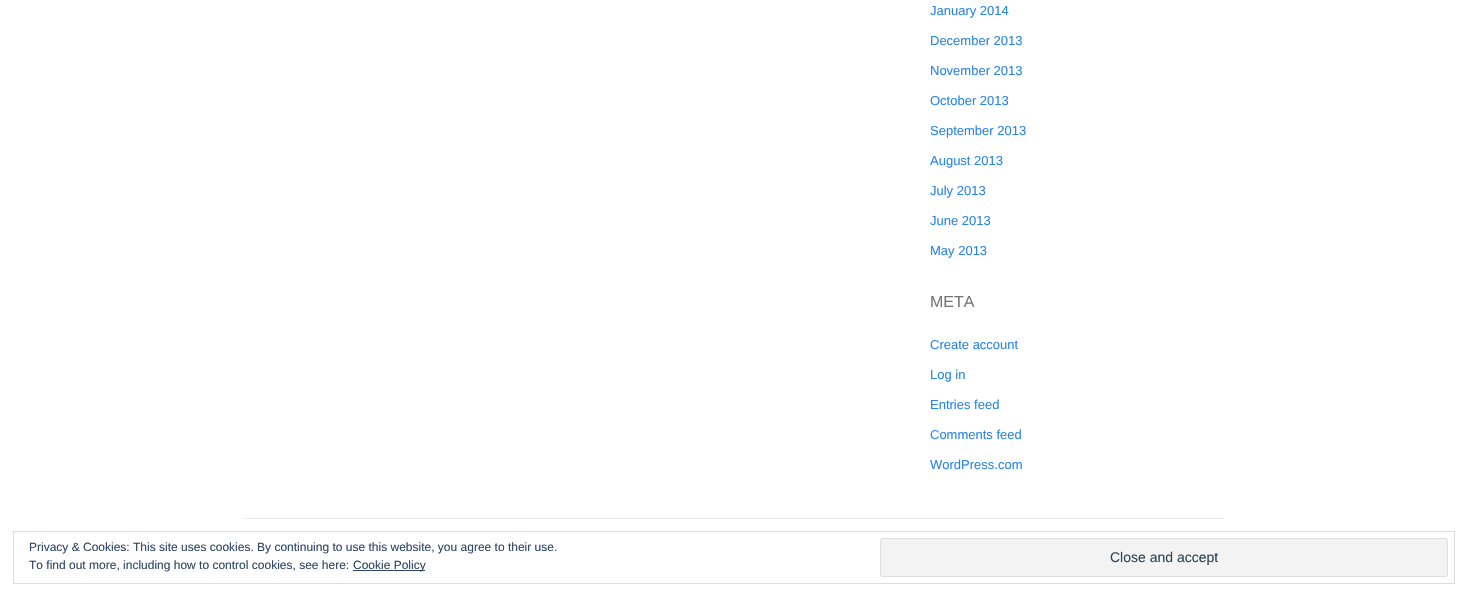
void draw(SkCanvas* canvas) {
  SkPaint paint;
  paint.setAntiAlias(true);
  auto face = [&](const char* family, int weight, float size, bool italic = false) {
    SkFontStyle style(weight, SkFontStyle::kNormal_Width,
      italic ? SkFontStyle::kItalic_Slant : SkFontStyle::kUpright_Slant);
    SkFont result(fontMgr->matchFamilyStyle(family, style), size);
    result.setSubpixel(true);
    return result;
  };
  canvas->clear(0xffffffff);
  paint.setColor(0xffeaeaea);
  canvas->drawRect(SkRect::MakeXYWH(244, 518, 980, 1), paint);
  paint.setStroke(true);
  paint.setStrokeWidth(1);
  paint.setColor(0xffdedede);
  canvas->drawRect(SkRect::MakeXYWH(13.5f, 531.5f, 1441, 52), paint);
  paint.setStroke(false);
  paint.setColor(0xff2e4467);
  canvas->drawRect(SkRect::MakeXYWH(353, 570, 72, 1), paint);
  paint.setColor(0xfff3f3f3);
  canvas->drawRoundRect(SkRect::MakeXYWH(880.5f, 538.5f, 567, 38), 2.5f, 2.5f, paint);
  paint.setStroke(true);
  paint.setColor(0xffdedede);
  canvas->drawRoundRect(SkRect::MakeXYWH(880.5f, 538.5f, 567, 38), 2.5f, 2.5f, paint);
  auto f0 = face("Liberation Sans", 400, 13);
  paint.setStroke(false);
  paint.setColor(0xff2a85e8);
  {
    const struct { const char* s; float x, y; } items[] = {
      {"January 2014", 930, 15},
      {"December 2013", 930, 45},
      {"November 2013", 930, 75},
      {"October 2013", 930, 105},
      {"September 2013", 930, 135},
      {"August 2013", 930, 165},
      {"July 2013", 930, 195},
      {"June 2013", 930, 225},
      {"May 2013", 930, 255},
    };
    for (auto [s, x, y] : items) {
      canvas->drawString(s, x, y, f0, paint);
    }
  }
  auto f1 = face("Liberation Sans", 400, 16);
  paint.setColor(0xff777777);
  canvas->drawString("META", 930, 307, f1, paint);
  paint.setColor(0xff2a85e8);
  {
    const struct { const char* s; float x, y; } items[] = {
      {"Create account", 930, 349},
      {"Log in", 930, 379},
      {"Entries feed", 930, 409},
      {"Comments feed", 930, 439},
      {"WordPress.com", 930, 469},
    };
    for (auto [s, x, y] : items) {
      canvas->drawString(s, x, y, f0, paint);
    }
  }
  auto f2 = face("Liberation Sans", 400, 12);
  paint.setColor(0xff2e4467);
  {
    const struct { const char* s; float x, y; } items[] = {
      {"Privacy & Cookies: This site uses cookies. By continuing to use this website, you agree to their use.", 29, 551},
      {"To find out more, including how to control cookies, see here:", 29, 569},
      {"Cookie Policy", 353, 569},
    };
    for (auto [s, x, y] : items) {
      canvas->drawString(s, x, y, f2, paint);
    }
  }
  auto f3 = face("Liberation Sans", 400, 14);
  paint.setColor(0xff2e4453);
  canvas->drawString("Close and accept", 1110, 562, f3, paint);
}
